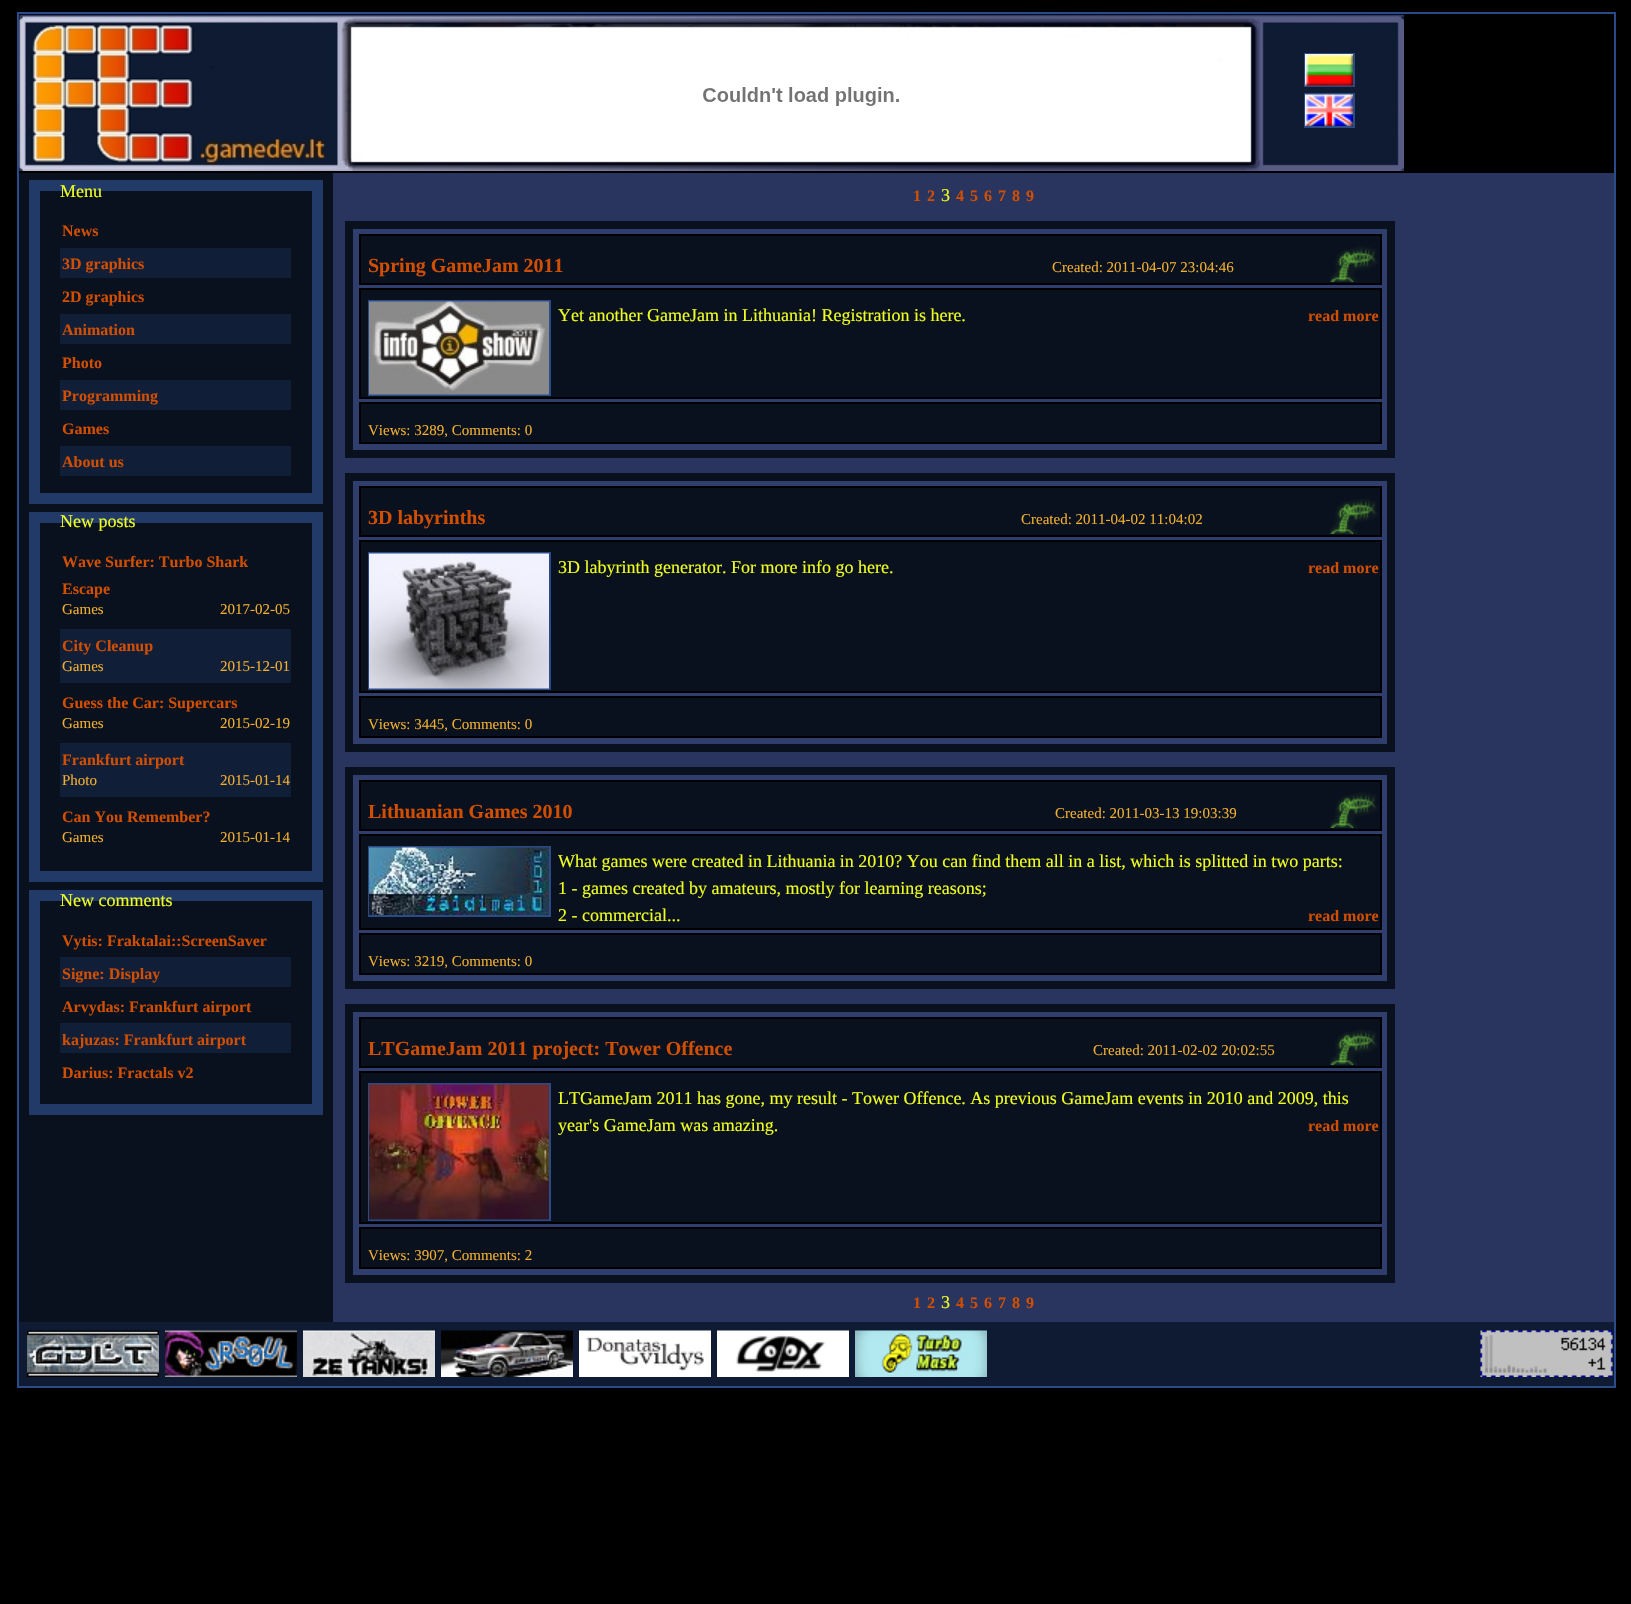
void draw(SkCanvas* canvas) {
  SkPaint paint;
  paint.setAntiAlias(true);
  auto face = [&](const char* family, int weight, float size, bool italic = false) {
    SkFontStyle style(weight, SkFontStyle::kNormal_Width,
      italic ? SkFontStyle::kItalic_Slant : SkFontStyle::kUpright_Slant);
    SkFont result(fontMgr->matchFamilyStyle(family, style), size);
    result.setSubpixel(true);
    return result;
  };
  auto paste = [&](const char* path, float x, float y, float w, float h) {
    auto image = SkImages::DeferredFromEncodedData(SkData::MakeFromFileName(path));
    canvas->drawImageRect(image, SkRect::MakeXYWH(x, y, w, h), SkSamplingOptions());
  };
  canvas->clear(0xff000000);
  {
    const struct { float x, y, w, h; SkColor color; } items[] = {
      {17, 12, 1599, 2, 0xff2a4b87},
      {1614, 12, 2, 1376, 0xff2a4b87},
      {17, 1386, 1599, 2, 0xff2a4b87},
      {17, 12, 2, 1376, 0xff2a4b87},
    };
    for (auto [x, y, w, h, color] : items) {
      paint.setColor(color);
      canvas->drawRect(SkRect::MakeXYWH(x, y, w, h), paint);
    }
  }
  paste("img/1.png", 19, 14, 1385, 157);
  paste("img/2.png", 703, 87, 196, 19);
  paint.setStroke(true);
  paint.setStrokeWidth(2);
  canvas->drawRect(SkRect::MakeXYWH(1305, 54, 49, 32), paint);
  paste("img/3.png", 1305, 54, 48, 32);
  canvas->drawRect(SkRect::MakeXYWH(1305, 94, 49, 33), paint);
  paste("img/4.png", 1305, 94, 48, 32);
  paint.setStroke(false);
  paint.setColor(0xff09101e);
  canvas->drawRect(SkRect::MakeXYWH(19, 173, 314, 1149), paint);
  paint.setStroke(true);
  paint.setStrokeWidth(11);
  paint.setColor(0xff213a68);
  canvas->drawRect(SkRect::MakeXYWH(34.5f, 185.5f, 283, 313), paint);
  paint.setStroke(false);
  {
    const struct { float x, y, w, h; SkColor color; } items[] = {
      {60, 248, 231, 30, 0xff111e38},
      {60, 314, 231, 30, 0xff111e38},
      {60, 380, 231, 30, 0xff111e38},
      {60, 446, 231, 30, 0xff111e38},
    };
    for (auto [x, y, w, h, color] : items) {
      paint.setColor(color);
      canvas->drawRect(SkRect::MakeXYWH(x, y, w, h), paint);
    }
  }
  paint.setStroke(true);
  paint.setColor(0xff213a68);
  canvas->drawRect(SkRect::MakeXYWH(34.5f, 517.5f, 283, 359), paint);
  paint.setStroke(false);
  paint.setColor(0xff111e38);
  canvas->drawRect(SkRect::MakeXYWH(60, 629, 231, 54), paint);
  canvas->drawRect(SkRect::MakeXYWH(60, 743, 231, 54), paint);
  paint.setStroke(true);
  paint.setColor(0xff213a68);
  canvas->drawRect(SkRect::MakeXYWH(34.5f, 895.5f, 283, 214), paint);
  paint.setStroke(false);
  {
    const struct { float x, y, w, h; SkColor color; } items[] = {
      {60, 957, 231, 30, 0xff111e38},
      {60, 1023, 231, 30, 0xff111e38},
      {333, 173, 1281, 1149, 0xff29355e},
    };
    for (auto [x, y, w, h, color] : items) {
      paint.setColor(color);
      canvas->drawRect(SkRect::MakeXYWH(x, y, w, h), paint);
    }
  }
  paint.setColor(0xff303e6e);
  canvas->drawRect(SkRect::MakeXYWH(349, 225, 1042, 229), paint);
  paint.setStroke(true);
  paint.setStrokeWidth(8);
  paint.setColor(0xff09101e);
  canvas->drawRect(SkRect::MakeXYWH(349, 225, 1042, 229), paint);
  paint.setStroke(false);
  canvas->drawRect(SkRect::MakeXYWH(360, 235, 1021, 49), paint);
  paint.setStroke(true);
  paint.setStrokeWidth(2);
  paint.setColor(0xff000000);
  canvas->drawRect(SkRect::MakeXYWH(360, 235, 1021, 49), paint);
  paste("img/5.png", 1330, 246, 48, 36);
  paint.setStroke(false);
  paint.setColor(0xff09101e);
  canvas->drawRect(SkRect::MakeXYWH(360, 289, 1021, 109), paint);
  paint.setStroke(true);
  paint.setColor(0xff000000);
  canvas->drawRect(SkRect::MakeXYWH(360, 289, 1021, 109), paint);
  paint.setColor(0xff2a4b87);
  canvas->drawRect(SkRect::MakeXYWH(369, 301, 181, 94), paint);
  paste("img/6.png", 369, 301, 180, 94);
  paint.setStroke(false);
  paint.setColor(0xff09101e);
  canvas->drawRect(SkRect::MakeXYWH(360, 403, 1021, 40), paint);
  paint.setStroke(true);
  paint.setColor(0xff000000);
  canvas->drawRect(SkRect::MakeXYWH(360, 403, 1021, 40), paint);
  paint.setStroke(false);
  paint.setColor(0xff303e6e);
  canvas->drawRect(SkRect::MakeXYWH(349, 477, 1042, 271), paint);
  paint.setStroke(true);
  paint.setStrokeWidth(8);
  paint.setColor(0xff09101e);
  canvas->drawRect(SkRect::MakeXYWH(349, 477, 1042, 271), paint);
  paint.setStroke(false);
  canvas->drawRect(SkRect::MakeXYWH(360, 487, 1021, 49), paint);
  paint.setStroke(true);
  paint.setStrokeWidth(2);
  paint.setColor(0xff000000);
  canvas->drawRect(SkRect::MakeXYWH(360, 487, 1021, 49), paint);
  paste("img/5.png", 1330, 498, 48, 36);
  paint.setStroke(false);
  paint.setColor(0xff09101e);
  canvas->drawRect(SkRect::MakeXYWH(360, 541, 1021, 151), paint);
  paint.setStroke(true);
  paint.setColor(0xff000000);
  canvas->drawRect(SkRect::MakeXYWH(360, 541, 1021, 151), paint);
  paint.setColor(0xff2a4b87);
  canvas->drawRect(SkRect::MakeXYWH(369, 553, 181, 136), paint);
  paste("img/7.png", 369, 553, 180, 136);
  paint.setStroke(false);
  paint.setColor(0xff09101e);
  canvas->drawRect(SkRect::MakeXYWH(360, 697, 1021, 40), paint);
  paint.setStroke(true);
  paint.setColor(0xff000000);
  canvas->drawRect(SkRect::MakeXYWH(360, 697, 1021, 40), paint);
  paint.setStroke(false);
  paint.setColor(0xff303e6e);
  canvas->drawRect(SkRect::MakeXYWH(349, 771, 1042, 214), paint);
  paint.setStroke(true);
  paint.setStrokeWidth(8);
  paint.setColor(0xff09101e);
  canvas->drawRect(SkRect::MakeXYWH(349, 771, 1042, 214), paint);
  paint.setStroke(false);
  canvas->drawRect(SkRect::MakeXYWH(360, 781, 1021, 49), paint);
  paint.setStroke(true);
  paint.setStrokeWidth(2);
  paint.setColor(0xff000000);
  canvas->drawRect(SkRect::MakeXYWH(360, 781, 1021, 49), paint);
  paste("img/5.png", 1330, 792, 48, 36);
  paint.setStroke(false);
  paint.setColor(0xff09101e);
  canvas->drawRect(SkRect::MakeXYWH(360, 835, 1021, 94), paint);
  paint.setStroke(true);
  paint.setColor(0xff000000);
  canvas->drawRect(SkRect::MakeXYWH(360, 835, 1021, 94), paint);
  paint.setColor(0xff2a4b87);
  canvas->drawRect(SkRect::MakeXYWH(369, 847, 181, 69), paint);
  paste("img/8.png", 369, 847, 180, 68);
  paint.setStroke(false);
  paint.setColor(0xff09101e);
  canvas->drawRect(SkRect::MakeXYWH(360, 934, 1021, 40), paint);
  paint.setStroke(true);
  paint.setColor(0xff000000);
  canvas->drawRect(SkRect::MakeXYWH(360, 934, 1021, 40), paint);
  paint.setStroke(false);
  paint.setColor(0xff303e6e);
  canvas->drawRect(SkRect::MakeXYWH(349, 1008, 1042, 271), paint);
  paint.setStroke(true);
  paint.setStrokeWidth(8);
  paint.setColor(0xff09101e);
  canvas->drawRect(SkRect::MakeXYWH(349, 1008, 1042, 271), paint);
  paint.setStroke(false);
  canvas->drawRect(SkRect::MakeXYWH(360, 1018, 1021, 49), paint);
  paint.setStroke(true);
  paint.setStrokeWidth(2);
  paint.setColor(0xff000000);
  canvas->drawRect(SkRect::MakeXYWH(360, 1018, 1021, 49), paint);
  paste("img/5.png", 1330, 1029, 48, 36);
  paint.setStroke(false);
  paint.setColor(0xff09101e);
  canvas->drawRect(SkRect::MakeXYWH(360, 1072, 1021, 151), paint);
  paint.setStroke(true);
  paint.setColor(0xff000000);
  canvas->drawRect(SkRect::MakeXYWH(360, 1072, 1021, 151), paint);
  paint.setColor(0xff2a4b87);
  canvas->drawRect(SkRect::MakeXYWH(369, 1084, 181, 136), paint);
  paste("img/9.png", 369, 1084, 180, 136);
  paint.setStroke(false);
  paint.setColor(0xff09101e);
  canvas->drawRect(SkRect::MakeXYWH(360, 1228, 1021, 40), paint);
  paint.setStroke(true);
  paint.setColor(0xff000000);
  canvas->drawRect(SkRect::MakeXYWH(360, 1228, 1021, 40), paint);
  paint.setStroke(false);
  paint.setColor(0xff0e1b33);
  canvas->drawRect(SkRect::MakeXYWH(19, 1322, 1595, 64), paint);
  paste("img/10.png", 27, 1330, 132, 47);
  paste("img/11.png", 165, 1330, 132, 47);
  paste("img/12.png", 303, 1330, 132, 47);
  paste("img/13.png", 441, 1330, 132, 47);
  paste("img/14.png", 579, 1330, 132, 47);
  paste("img/15.png", 717, 1330, 132, 47);
  paste("img/16.png", 855, 1330, 132, 47);
  paste("img/17.png", 1480, 1330, 133, 47);
  auto f0 = face("Liberation Serif", 400, 18);
  paint.setColor(0xfff0ff20);
  canvas->drawString("Menu", 60, 197, f0, paint);
  auto f1 = face("Liberation Serif", 700, 16);
  paint.setColor(0xffd04e00);
  {
    const struct { const char* s; float x, y; } items[] = {
      {"News", 62, 236},
      {"3D graphics", 62, 269},
      {"2D graphics", 62, 302},
      {"Animation", 62, 335},
      {"Photo", 62, 368},
      {"Programming", 62, 401},
      {"Games", 62, 434},
      {"About us", 62, 467},
    };
    for (auto [s, x, y] : items) {
      canvas->drawString(s, x, y, f1, paint);
    }
  }
  paint.setColor(0xfff0ff20);
  canvas->drawString("New posts", 60, 527, f0, paint);
  paint.setColor(0xffd04e00);
  canvas->drawString("Wave Surfer: Turbo Shark", 62, 567, f1, paint);
  canvas->drawString("Escape", 62, 594, f1, paint);
  auto f2 = face("Liberation Serif", 400, 15);
  paint.setColor(0xfff0af30);
  canvas->drawString("Games", 62, 614, f2, paint);
  canvas->drawString("2017-02-05", 220, 614, f2, paint);
  paint.setColor(0xffd04e00);
  canvas->drawString("City Cleanup", 62, 651, f1, paint);
  paint.setColor(0xfff0af30);
  canvas->drawString("Games", 62, 671, f2, paint);
  canvas->drawString("2015-12-01", 220, 671, f2, paint);
  paint.setColor(0xffd04e00);
  canvas->drawString("Guess the Car: Supercars", 62, 708, f1, paint);
  paint.setColor(0xfff0af30);
  canvas->drawString("Games", 62, 728, f2, paint);
  canvas->drawString("2015-02-19", 220, 728, f2, paint);
  paint.setColor(0xffd04e00);
  canvas->drawString("Frankfurt airport", 62, 765, f1, paint);
  paint.setColor(0xfff0af30);
  canvas->drawString("Photo", 62, 785, f2, paint);
  canvas->drawString("2015-01-14", 220, 785, f2, paint);
  paint.setColor(0xffd04e00);
  canvas->drawString("Can You Remember?", 62, 822, f1, paint);
  paint.setColor(0xfff0af30);
  canvas->drawString("Games", 62, 842, f2, paint);
  canvas->drawString("2015-01-14", 220, 842, f2, paint);
  paint.setColor(0xfff0ff20);
  canvas->drawString("New comments", 60, 906, f0, paint);
  paint.setColor(0xffd04e00);
  {
    const struct { const char* s; float x, y; } items[] = {
      {"Vytis: Fraktalai::ScreenSaver", 62, 946},
      {"Signe: Display", 62, 979},
      {"Arvydas: Frankfurt airport", 62, 1012},
      {"kajuzas: Frankfurt airport", 62, 1045},
      {"Darius: Fractals v2", 62, 1078},
      {"1", 913, 201},
      {"2", 927, 201},
    };
    for (auto [s, x, y] : items) {
      canvas->drawString(s, x, y, f1, paint);
    }
  }
  paint.setColor(0xfff0ff20);
  canvas->drawString("3", 941, 201, f0, paint);
  paint.setColor(0xffd04e00);
  {
    const struct { const char* s; float x, y; } items[] = {
      {"4", 956, 201},
      {"5", 970, 201},
      {"6", 984, 201},
      {"7", 998, 201},
      {"8", 1012, 201},
      {"9", 1026, 201},
    };
    for (auto [s, x, y] : items) {
      canvas->drawString(s, x, y, f1, paint);
    }
  }
  auto f3 = face("Liberation Serif", 700, 20);
  canvas->drawString("Spring GameJam 2011", 368, 272, f3, paint);
  paint.setColor(0xfff0af30);
  canvas->drawString("Created: 2011-04-07 23:04:46", 1052, 272, f2, paint);
  paint.setColor(0xfff0ff20);
  canvas->drawString("Yet another GameJam in Lithuania! Registration is here.", 558, 321, f0, paint);
  paint.setColor(0xffd04e00);
  canvas->drawString("read more", 1308, 321, f1, paint);
  paint.setColor(0xfff0af30);
  canvas->drawString("Views: 3289, Comments: 0", 368, 435, f2, paint);
  paint.setColor(0xffd04e00);
  canvas->drawString("3D labyrinths", 368, 524, f3, paint);
  paint.setColor(0xfff0af30);
  canvas->drawString("Created: 2011-04-02 11:04:02", 1021, 524, f2, paint);
  paint.setColor(0xfff0ff20);
  canvas->drawString("3D labyrinth generator. For more info go here.", 558, 573, f0, paint);
  paint.setColor(0xffd04e00);
  canvas->drawString("read more", 1308, 573, f1, paint);
  paint.setColor(0xfff0af30);
  canvas->drawString("Views: 3445, Comments: 0", 368, 729, f2, paint);
  paint.setColor(0xffd04e00);
  canvas->drawString("Lithuanian Games 2010", 368, 818, f3, paint);
  paint.setColor(0xfff0af30);
  canvas->drawString("Created: 2011-03-13 19:03:39", 1055, 818, f2, paint);
  paint.setColor(0xfff0ff20);
  {
    const struct { const char* s; float x, y; } items[] = {
      {"What games were created in Lithuania in 2010? You can find them all in a list, which is splitted in two parts:", 558, 867},
      {"1 - games created by amateurs, mostly for learning reasons;", 558, 894},
      {"2 - commercial...", 558, 921},
    };
    for (auto [s, x, y] : items) {
      canvas->drawString(s, x, y, f0, paint);
    }
  }
  paint.setColor(0xffd04e00);
  canvas->drawString("read more", 1308, 921, f1, paint);
  paint.setColor(0xfff0af30);
  canvas->drawString("Views: 3219, Comments: 0", 368, 966, f2, paint);
  paint.setColor(0xffd04e00);
  canvas->drawString("LTGameJam 2011 project: Tower Offence", 368, 1055, f3, paint);
  paint.setColor(0xfff0af30);
  canvas->drawString("Created: 2011-02-02 20:02:55", 1093, 1055, f2, paint);
  paint.setColor(0xfff0ff20);
  canvas->drawString("LTGameJam 2011 has gone, my result - Tower Offence. As previous GameJam events in 2010 and 2009, this", 558, 1104, f0, paint);
  canvas->drawString("year's GameJam was amazing.", 558, 1131, f0, paint);
  paint.setColor(0xffd04e00);
  canvas->drawString("read more", 1308, 1131, f1, paint);
  paint.setColor(0xfff0af30);
  canvas->drawString("Views: 3907, Comments: 2", 368, 1260, f2, paint);
  paint.setColor(0xffd04e00);
  canvas->drawString("1", 913, 1308, f1, paint);
  canvas->drawString("2", 927, 1308, f1, paint);
  paint.setColor(0xfff0ff20);
  canvas->drawString("3", 941, 1308, f0, paint);
  paint.setColor(0xffd04e00);
  {
    const struct { const char* s; float x, y; } items[] = {
      {"4", 956, 1308},
      {"5", 970, 1308},
      {"6", 984, 1308},
      {"7", 998, 1308},
      {"8", 1012, 1308},
      {"9", 1026, 1308},
    };
    for (auto [s, x, y] : items) {
      canvas->drawString(s, x, y, f1, paint);
    }
  }
}
